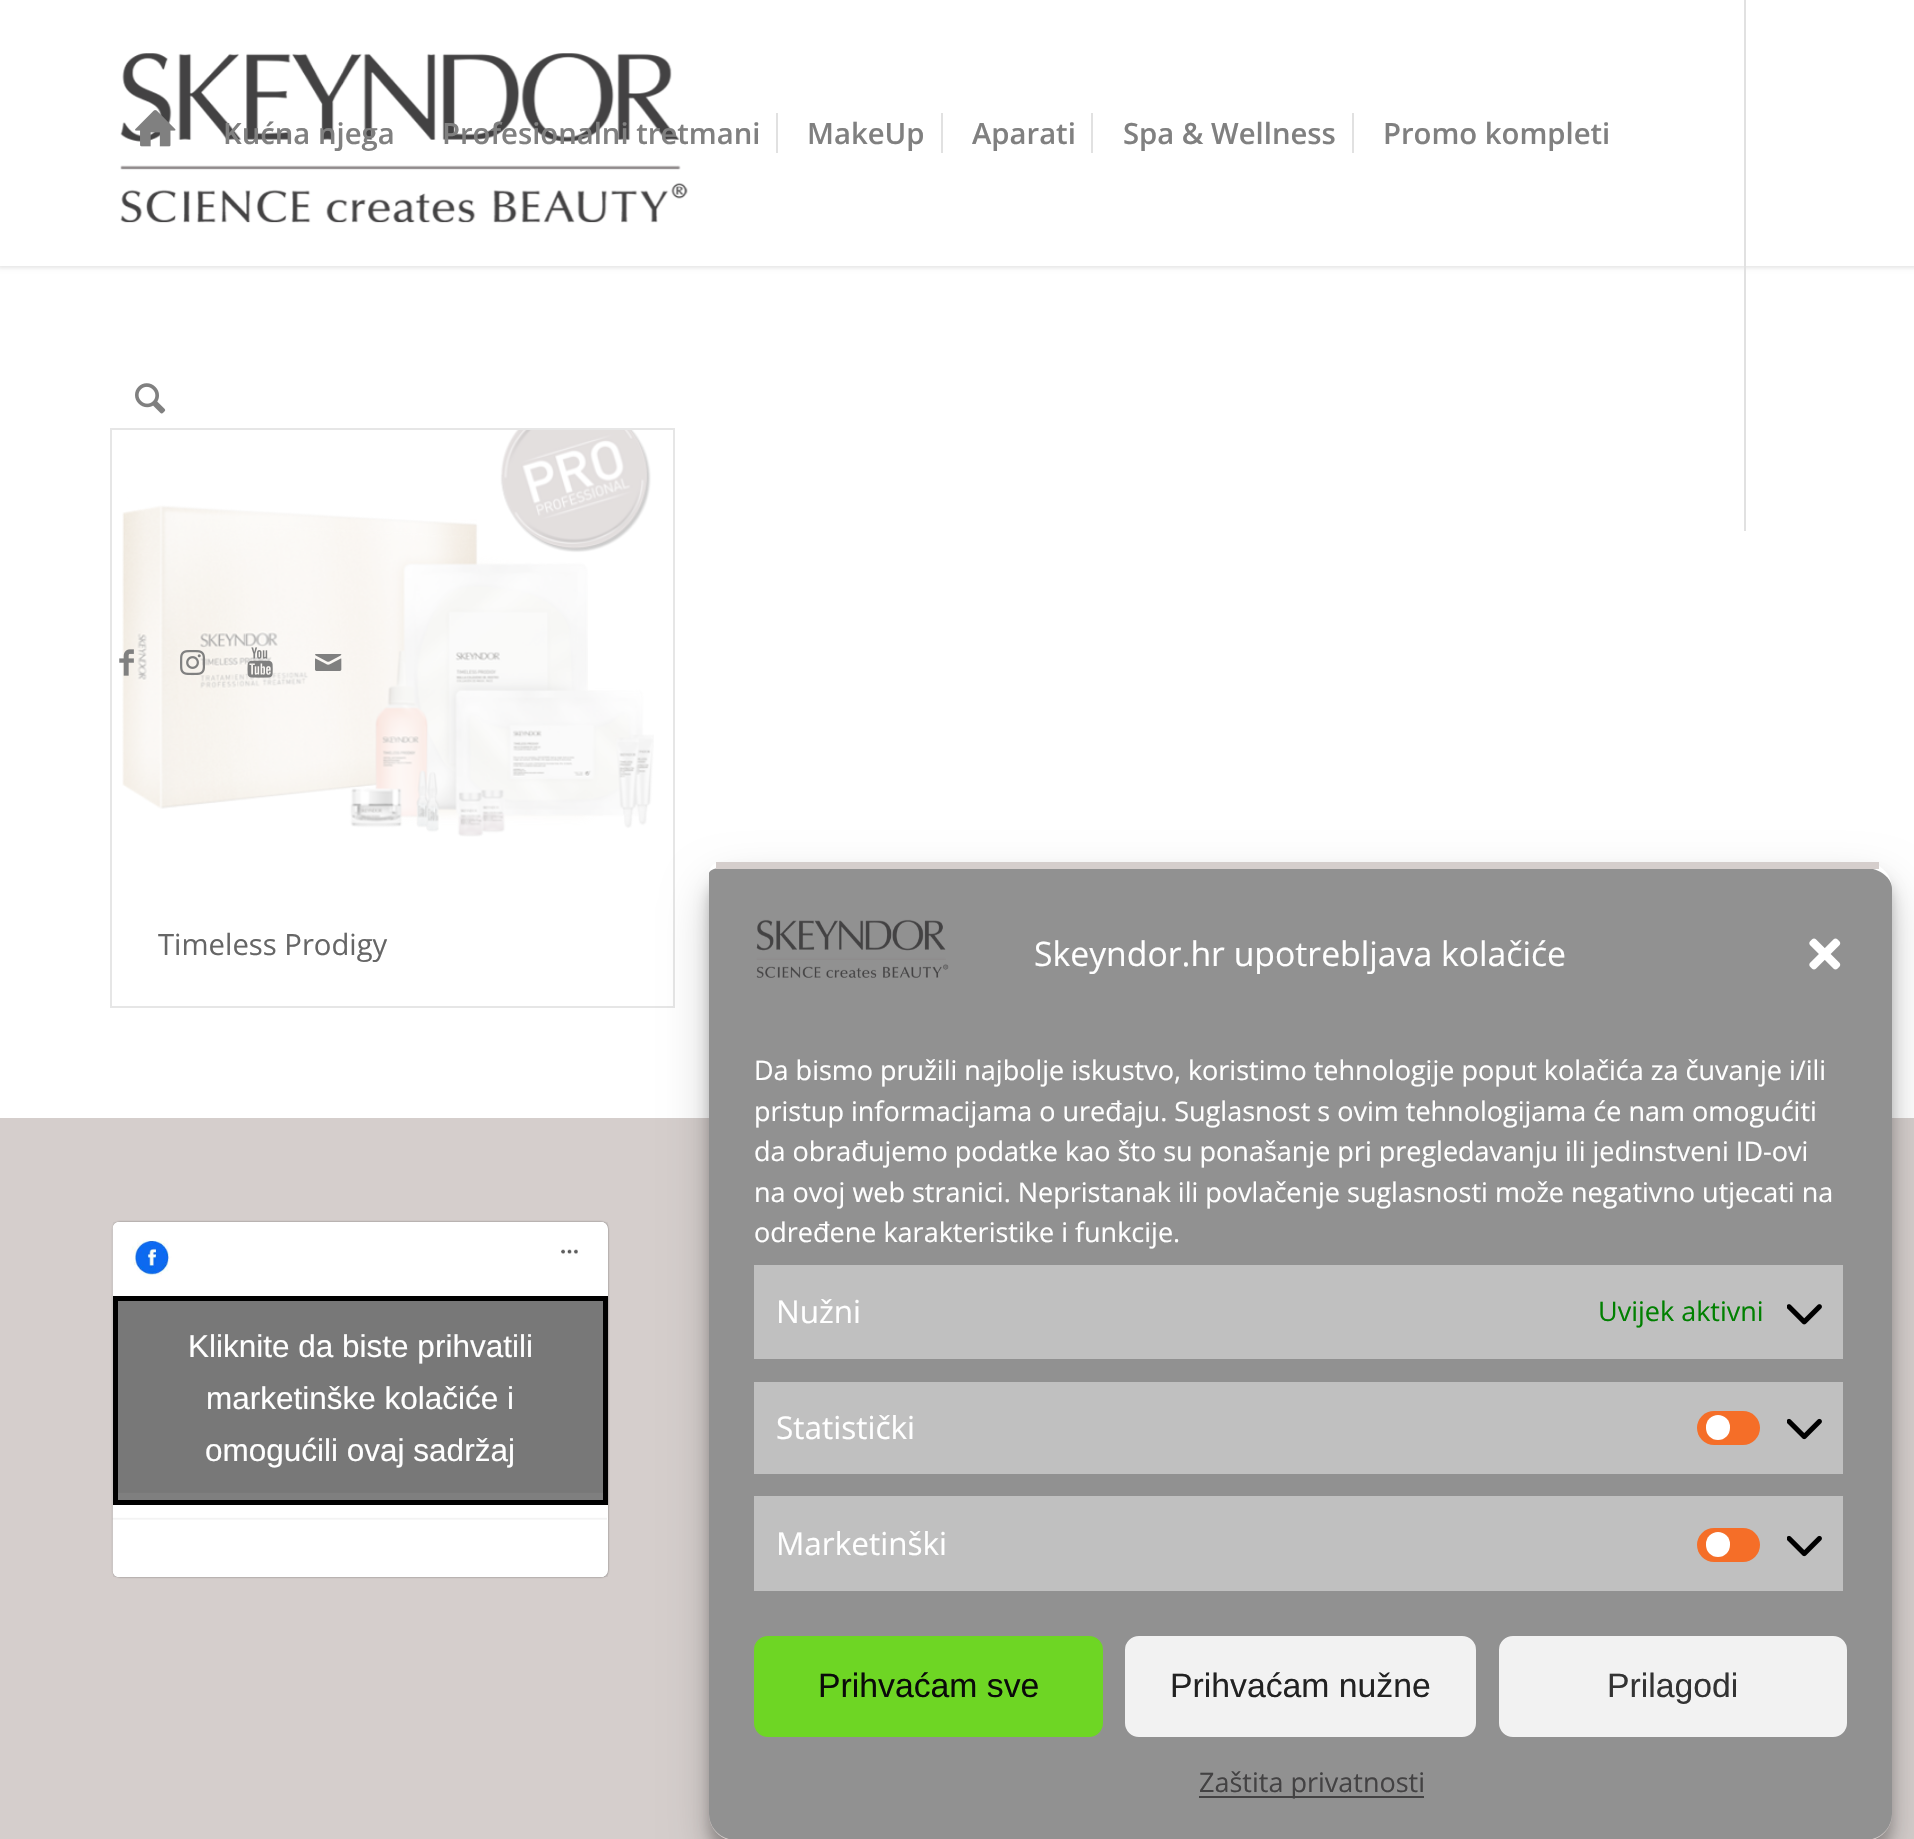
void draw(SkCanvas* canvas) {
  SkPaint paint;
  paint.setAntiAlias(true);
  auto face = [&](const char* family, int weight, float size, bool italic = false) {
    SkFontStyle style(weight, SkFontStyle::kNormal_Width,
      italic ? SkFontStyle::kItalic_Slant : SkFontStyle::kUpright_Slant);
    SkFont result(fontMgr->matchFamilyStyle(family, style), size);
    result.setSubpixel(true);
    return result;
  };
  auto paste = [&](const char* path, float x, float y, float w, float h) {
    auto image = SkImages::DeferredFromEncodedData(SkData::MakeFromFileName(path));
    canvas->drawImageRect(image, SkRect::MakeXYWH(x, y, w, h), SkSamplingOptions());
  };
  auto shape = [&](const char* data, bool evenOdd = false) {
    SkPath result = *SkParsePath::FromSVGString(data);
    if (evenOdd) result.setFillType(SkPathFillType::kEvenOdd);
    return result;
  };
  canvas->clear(0xffffffff);
  paint.setColor(0x1a000000);
  paint.setMaskFilter(SkMaskFilter::MakeBlur(kNormal_SkBlurStyle, 2));
  canvas->drawRect(SkRect::MakeXYWH(-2, -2, 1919, 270), paint);
  paint.setMaskFilter(nullptr);
  paint.setColor(0xffffffff);
  canvas->drawRect(SkRect::MakeXYWH(0, 0, 1914, 266), paint);
  paste("img/1.png", 120, 53, 568, 170);
  paint.setColor(0xffe1e1e1);
  canvas->drawRect(SkRect::MakeXYWH(1744, 0, 2, 531), paint);
  paste("img/2.png", 135, 110, 41, 37);
  {
    const struct { float x, y, w, h; SkColor color; } items[] = {
      {776, 113, 2, 40, 0xffe1e1e1},
      {941, 113, 2, 40, 0xffe1e1e1},
      {1091, 113, 2, 40, 0xffe1e1e1},
      {1352, 113, 2, 40, 0xffe1e1e1},
    };
    for (auto [x, y, w, h, color] : items) {
      paint.setColor(color);
      canvas->drawRect(SkRect::MakeXYWH(x, y, w, h), paint);
    }
  }
  paste("img/3.png", 135, 383, 31, 31);
  paint.setStroke(true);
  paint.setStrokeWidth(2);
  paint.setColor(0xffe6e6e6);
  canvas->drawRect(SkRect::MakeXYWH(111, 429, 563, 578), paint);
  paste("img/8.png", 122, 430, 532, 407);
  paste("img/4.png", 119, 649, 15, 27);
  paste("img/5.png", 180, 650, 26, 26);
  paste("img/6.png", 247, 647, 26, 31);
  paste("img/7.png", 315, 654, 27, 17);
  paint.setStroke(false);
  paint.setColor(0xffd5cecc);
  canvas->drawRect(SkRect::MakeXYWH(0, 1118, 1914, 721), paint);
  canvas->save();
  canvas->clipRect(SkRect::MakeXYWH(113, 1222, 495, 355));
  paint.setColor(0x26000000);
  paint.setMaskFilter(SkMaskFilter::MakeBlur(kNormal_SkBlurStyle, 11));
  canvas->drawRoundRect(SkRect::MakeXYWH(113, 1224, 495, 356), 7, 7, paint);
  paint.setMaskFilter(nullptr);
  canvas->restore();
  canvas->save();
  canvas->clipPath(shape("M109 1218H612V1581H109ZM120 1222H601C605 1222 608 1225 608 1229V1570C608 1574 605 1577 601 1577H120C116 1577 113 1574 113 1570V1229C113 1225 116 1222 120 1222Z", true), true);
  paint.setColor(0x80000000);
  paint.setMaskFilter(SkMaskFilter::MakeBlur(kNormal_SkBlurStyle, 1));
  canvas->drawRoundRect(SkRect::MakeXYWH(113, 1222, 495, 355), 7, 7, paint);
  paint.setMaskFilter(nullptr);
  canvas->restore();
  paint.setColor(0xffffffff);
  canvas->drawRoundRect(SkRect::MakeXYWH(113, 1222, 495, 355), 7, 7, paint);
  paste("img/9.png", 112, 1222, 495, 355);
  paint.setColor(0x80000000);
  canvas->drawRect(SkRect::MakeXYWH(115.5f, 1298.5f, 490, 204), paint);
  paint.setStroke(true);
  paint.setStrokeWidth(5);
  paint.setColor(0xff000000);
  canvas->drawRect(SkRect::MakeXYWH(115.5f, 1298.5f, 490, 204), paint);
  canvas->save();
  canvas->clipPath(shape("M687 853H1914V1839H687ZM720 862H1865C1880 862 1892 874 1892 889V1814C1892 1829 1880 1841 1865 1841H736C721 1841 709 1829 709 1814V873C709 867 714 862 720 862Z", true), true);
  paint.setStroke(false);
  paint.setColor(0x3b000000);
  paint.setMaskFilter(SkMaskFilter::MakeBlur(kNormal_SkBlurStyle, 7));
  canvas->drawRoundRect(SkRect::MakeXYWH(709, 875, 1183, 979), 27, 27, paint);
  paint.setMaskFilter(nullptr);
  canvas->restore();
  canvas->save();
  canvas->clipPath(shape("M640 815H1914V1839H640ZM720 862H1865C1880 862 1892 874 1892 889V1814C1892 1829 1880 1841 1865 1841H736C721 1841 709 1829 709 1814V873C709 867 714 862 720 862Z", true), true);
  paint.setColor(0x30000000);
  paint.setMaskFilter(SkMaskFilter::MakeBlur(kNormal_SkBlurStyle, 22.5f));
  canvas->drawRoundRect(SkRect::MakeXYWH(709, 884, 1183, 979), 27, 27, paint);
  paint.setMaskFilter(nullptr);
  canvas->restore();
  paint.setColor(0xff919191);
  canvas->drawPath(shape("M720 868H1865C1880 868 1892 878 1892 889V1814C1892 1828 1880 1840 1865 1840H736C721 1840 709 1828 709 1814V873C709 871 714 868 720 868Z"), paint);
  paint.setColor(0xffd5cecc);
  canvas->drawRect(SkRect::MakeXYWH(716, 862, 1163, 7), paint);
  paste("img/10.png", 756, 919, 193, 59);
  paste("img/11.png", 1809, 938, 32, 32);
  paint.setColor(0xffc0c0c0);
  canvas->drawRect(SkRect::MakeXYWH(754, 1265, 1089, 94), paint);
  paste("img/12.png", 1787, 1304, 35, 21);
  canvas->drawRect(SkRect::MakeXYWH(754, 1382, 1089, 92), paint);
  paint.setColor(0xfff56e28);
  canvas->drawRoundRect(SkRect::MakeXYWH(1697, 1411, 63, 34), 17, 17, paint);
  paint.setColor(0xffffffff);
  canvas->drawRoundRect(SkRect::MakeXYWH(1706, 1415, 24, 25), 12, 12, paint);
  paste("img/13.png", 1787, 1418, 35, 22);
  paint.setColor(0xffc0c0c0);
  canvas->drawRect(SkRect::MakeXYWH(754, 1496, 1089, 95), paint);
  paint.setColor(0xfff56e28);
  canvas->drawRoundRect(SkRect::MakeXYWH(1697, 1528, 63, 34), 17, 17, paint);
  paint.setColor(0xffffffff);
  canvas->drawRoundRect(SkRect::MakeXYWH(1706, 1532, 24, 25), 12, 12, paint);
  paste("img/13.png", 1787, 1535, 35, 22);
  paint.setColor(0xff6ed624);
  canvas->drawRoundRect(SkRect::MakeXYWH(755, 1637, 347, 99), 13, 13, paint);
  paint.setStroke(true);
  paint.setStrokeWidth(2);
  canvas->drawRoundRect(SkRect::MakeXYWH(755, 1637, 347, 99), 13, 13, paint);
  paint.setStroke(false);
  paint.setColor(0xfff2f2f2);
  canvas->drawRoundRect(SkRect::MakeXYWH(1126, 1637, 349, 99), 13, 13, paint);
  paint.setStroke(true);
  canvas->drawRoundRect(SkRect::MakeXYWH(1126, 1637, 349, 99), 13, 13, paint);
  paint.setStroke(false);
  canvas->drawRoundRect(SkRect::MakeXYWH(1500, 1637, 346, 99), 13, 13, paint);
  paint.setStroke(true);
  canvas->drawRoundRect(SkRect::MakeXYWH(1500, 1637, 346, 99), 13, 13, paint);
  paint.setStroke(false);
  paint.setColor(0xff434243);
  canvas->drawRect(SkRect::MakeXYWH(1199, 1796, 225, 2), paint);
  auto f0 = face("Open Sans", 600, 29.25f);
  paint.setColor(0xff808080);
  {
    const struct { const char* s; float x, y; } items[] = {
      {"Kućna njega", 223, 144},
      {"Profesionalni tretmani", 442, 144},
      {"MakeUp", 807, 144},
      {"Aparati", 972, 144},
      {"Spa & Wellness", 1123, 144},
      {"Promo kompleti", 1383, 144},
    };
    for (auto [s, x, y] : items) {
      canvas->drawString(s, x, y, f0, paint);
    }
  }
  auto f1 = face("Open Sans", 400, 29.25f);
  paint.setColor(0xff666666);
  canvas->drawString("Timeless Prodigy", 158, 955, f1, paint);
  auto f2 = face("Liberation Sans", 400, 31.5f);
  paint.setColor(0xffffffff);
  {
    const struct { const char* s; float x, y; } items[] = {
      {"Kliknite da biste prihvatili", 188, 1357},
      {"marketinške kolačiće i", 206, 1409},
      {"omogućili ovaj sadržaj", 205, 1461},
    };
    for (auto [s, x, y] : items) {
      canvas->drawString(s, x, y, f2, paint);
    }
  }
  auto f3 = face("Open Sans", 400, 33.75f);
  canvas->drawString("Skeyndor.hr upotrebljava kolačiće", 1034, 966, f3, paint);
  auto f4 = face("Open Sans", 400, 27);
  {
    const struct { const char* s; float x, y; } items[] = {
      {"Da bismo pružili najbolje iskustvo, koristimo tehnologije poput kolačića za čuvanje i/ili", 754, 1080},
      {"pristup informacijama o uređaju. Suglasnost s ovim tehnologijama će nam omogućiti", 754, 1121},
      {"da obrađujemo podatke kao što su ponašanje pri pregledavanju ili jedinstveni ID-ovi", 754, 1161},
      {"na ovoj web stranici. Nepristanak ili povlačenje suglasnosti može negativno utjecati na", 754, 1202},
      {"određene karakteristike i funkcije.", 754, 1242},
    };
    for (auto [s, x, y] : items) {
      canvas->drawString(s, x, y, f4, paint);
    }
  }
  auto f5 = face("Open Sans", 400, 31.5f);
  canvas->drawString("Nužni", 776, 1323, f5, paint);
  paint.setColor(0xff008000);
  canvas->drawString("Uvijek aktivni", 1598, 1321, f4, paint);
  paint.setColor(0xffffffff);
  canvas->drawString("Statistički", 776, 1439, f5, paint);
  canvas->drawString("Marketinški", 776, 1555, f5, paint);
  auto f6 = face("Liberation Sans", 400, 33.75f);
  paint.setColor(0xff0a0a0a);
  canvas->drawString("Prihvaćam sve", 818, 1697, f6, paint);
  paint.setColor(0xff222222);
  canvas->drawString("Prihvaćam nužne", 1170, 1697, f6, paint);
  paint.setColor(0xff333333);
  canvas->drawString("Prilagodi", 1607, 1697, f6, paint);
  paint.setColor(0xff434243);
  canvas->drawString("Zaštita privatnosti", 1199, 1792, f4, paint);
}
